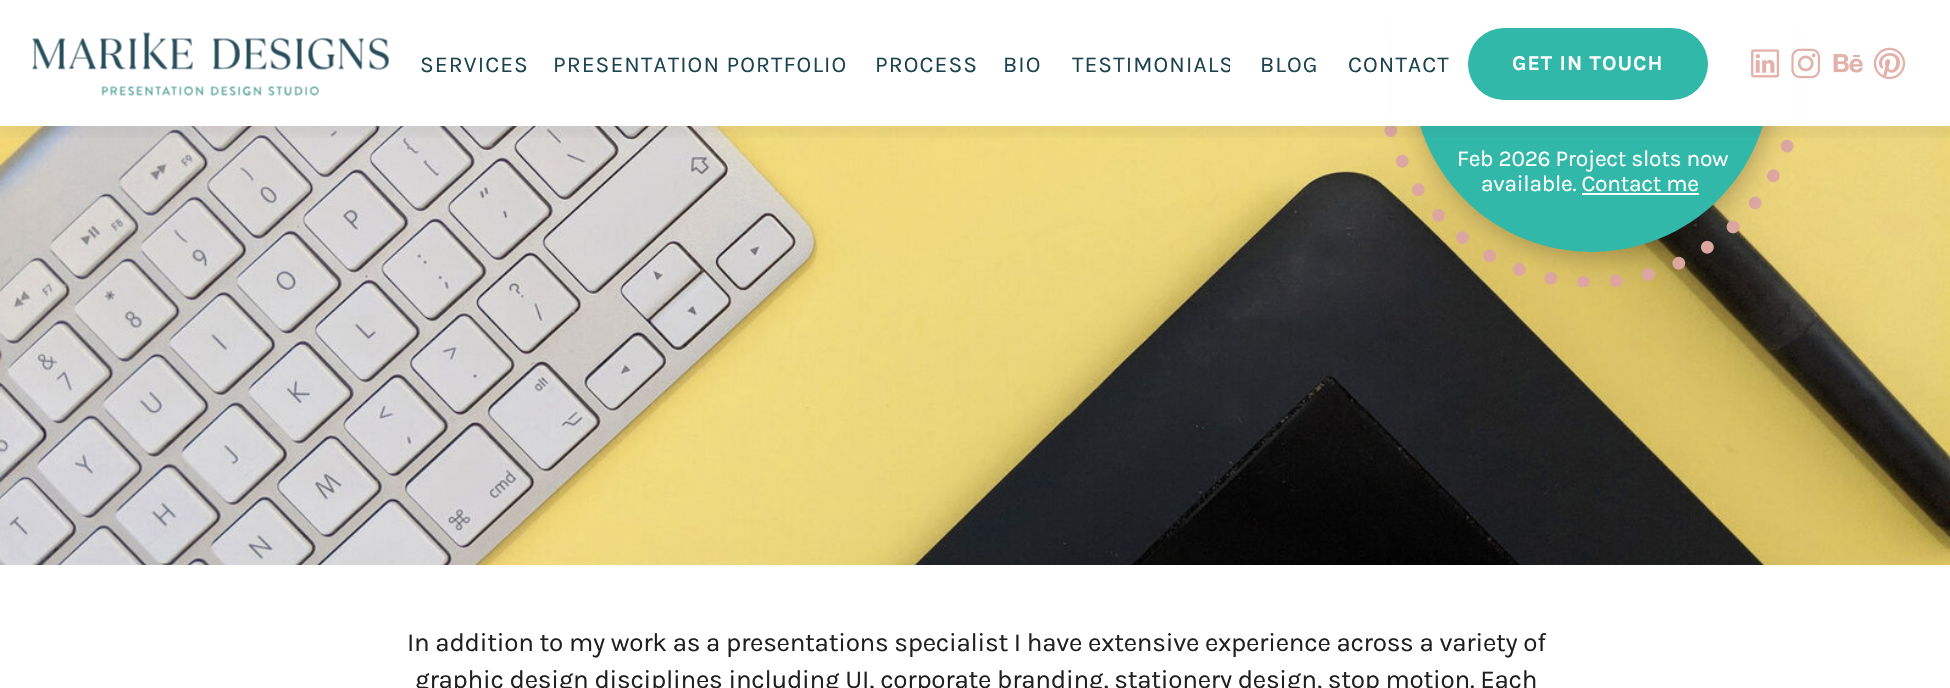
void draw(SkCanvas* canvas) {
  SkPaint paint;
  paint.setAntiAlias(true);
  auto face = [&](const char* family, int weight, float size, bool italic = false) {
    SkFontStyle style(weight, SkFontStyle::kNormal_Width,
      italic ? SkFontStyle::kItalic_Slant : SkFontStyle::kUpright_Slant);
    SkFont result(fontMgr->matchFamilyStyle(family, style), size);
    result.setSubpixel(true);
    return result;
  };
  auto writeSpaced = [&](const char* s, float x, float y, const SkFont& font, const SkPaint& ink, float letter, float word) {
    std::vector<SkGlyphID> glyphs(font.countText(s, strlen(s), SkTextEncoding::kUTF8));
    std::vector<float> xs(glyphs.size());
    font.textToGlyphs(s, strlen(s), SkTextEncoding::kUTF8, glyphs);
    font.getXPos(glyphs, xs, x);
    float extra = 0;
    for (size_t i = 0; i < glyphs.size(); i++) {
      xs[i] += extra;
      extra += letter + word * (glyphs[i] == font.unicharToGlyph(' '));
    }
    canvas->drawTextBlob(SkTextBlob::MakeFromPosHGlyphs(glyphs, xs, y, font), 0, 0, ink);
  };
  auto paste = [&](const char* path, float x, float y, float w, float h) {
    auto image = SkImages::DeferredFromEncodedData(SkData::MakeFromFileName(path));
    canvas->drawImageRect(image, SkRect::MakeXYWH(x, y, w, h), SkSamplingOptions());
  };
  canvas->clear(0xffffffff);
  paste("img/7.png", 0, 126, 1950, 439);
  paste("img/6.png", 1384, 126, 410, 161);
  paint.setColor(0x40000000);
  paint.setMaskFilter(SkMaskFilter::MakeBlur(kNormal_SkBlurStyle, 13));
  canvas->drawRoundRect(SkRect::MakeXYWH(1414, -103, 361, 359), 179.5f, 179.5f, paint);
  paint.setMaskFilter(nullptr);
  paint.setColor(0xff32b8a9);
  canvas->drawCircle(1591.5f, 72.5f, 179.5f, paint);
  paint.setColor(0xffffffff);
  canvas->drawRect(SkRect::MakeXYWH(1392, 0, 405, 126), paint);
  paste("img/1.png", 32, 32, 357, 64);
  paint.setColor(0xff32b8a9);
  canvas->drawRoundRect(SkRect::MakeXYWH(1468, 28, 240, 72), 36, 36, paint);
  paste("img/2.png", 1751, 49, 29, 29);
  paste("img/3.png", 1791, 48, 29, 31);
  paste("img/4.png", 1833, 54, 30, 19);
  paste("img/5.png", 1873, 47, 33, 33);
  {
    const SkColor colors[] = {0x00201e1f, 0x0d201e1f};
    const float stops[] = {0, 1};
    const SkPoint ends[] = {{976, 146}, {976, 127}};
    paint.setShader(SkGradientShader::MakeLinear(ends, colors, stops, 2, SkTileMode::kClamp));
    paint.setAlpha(255);
  }
  canvas->drawRect(SkRect::MakeXYWH(0, 126, 1950, 12), paint);
  paint.setShader(nullptr);
  paint.setColor(0xffffffff);
  canvas->drawRect(SkRect::MakeXYWH(1582, 193, 117, 2), paint);
  auto f0 = face("Karla", 400, 22.75f);
  paint.setColor(0xff1c444f);
  {
    const struct { const char* s; float x, y; } items[] = {
      {"SERVICES", 420, 72},
      {"PRESENTATION PORTFOLIO", 553, 72},
      {"PROCESS", 875, 72},
      {"BIO", 1003, 72},
    };
    for (auto [s, x, y] : items) {
      writeSpaced(s, x, y, f0, paint, 1.1f, 0);
    }
  }
  canvas->save();
  canvas->clipRect(SkRect::MakeXYWH(1071, 49, 159, 40));
  writeSpaced("TESTIMONIALS", 1072, 72, f0, paint, 1.1f, 0);
  canvas->restore();
  writeSpaced("BLOG", 1260, 72, f0, paint, 1.1f, 0);
  writeSpaced("CONTACT", 1348, 72, f0, paint, 1.1f, 0);
  auto f1 = face("Karla", 700, 21.25f);
  paint.setColor(0xffffffff);
  writeSpaced("GET IN TOUCH", 1512, 70, f1, paint, 1, 0);
  writeSpaced("Feb 2026 Project slots now", 1457, 166, f0, paint, -0.25f, 0);
  writeSpaced("available. Contact me", 1481, 191, f0, paint, -0.25f, 0);
  auto f2 = face("Karla", 400, 26);
  paint.setColor(0xff201e1f);
  writeSpaced("In addition to my work as a presentations specialist I have extensive experience across a variety of", 407, 651, f2, paint, -0.26f, 0);
  writeSpaced("graphic design disciplines including UI, corporate branding, stationery design, stop motion. Each", 415, 688, f2, paint, -0.26f, 0);
}
